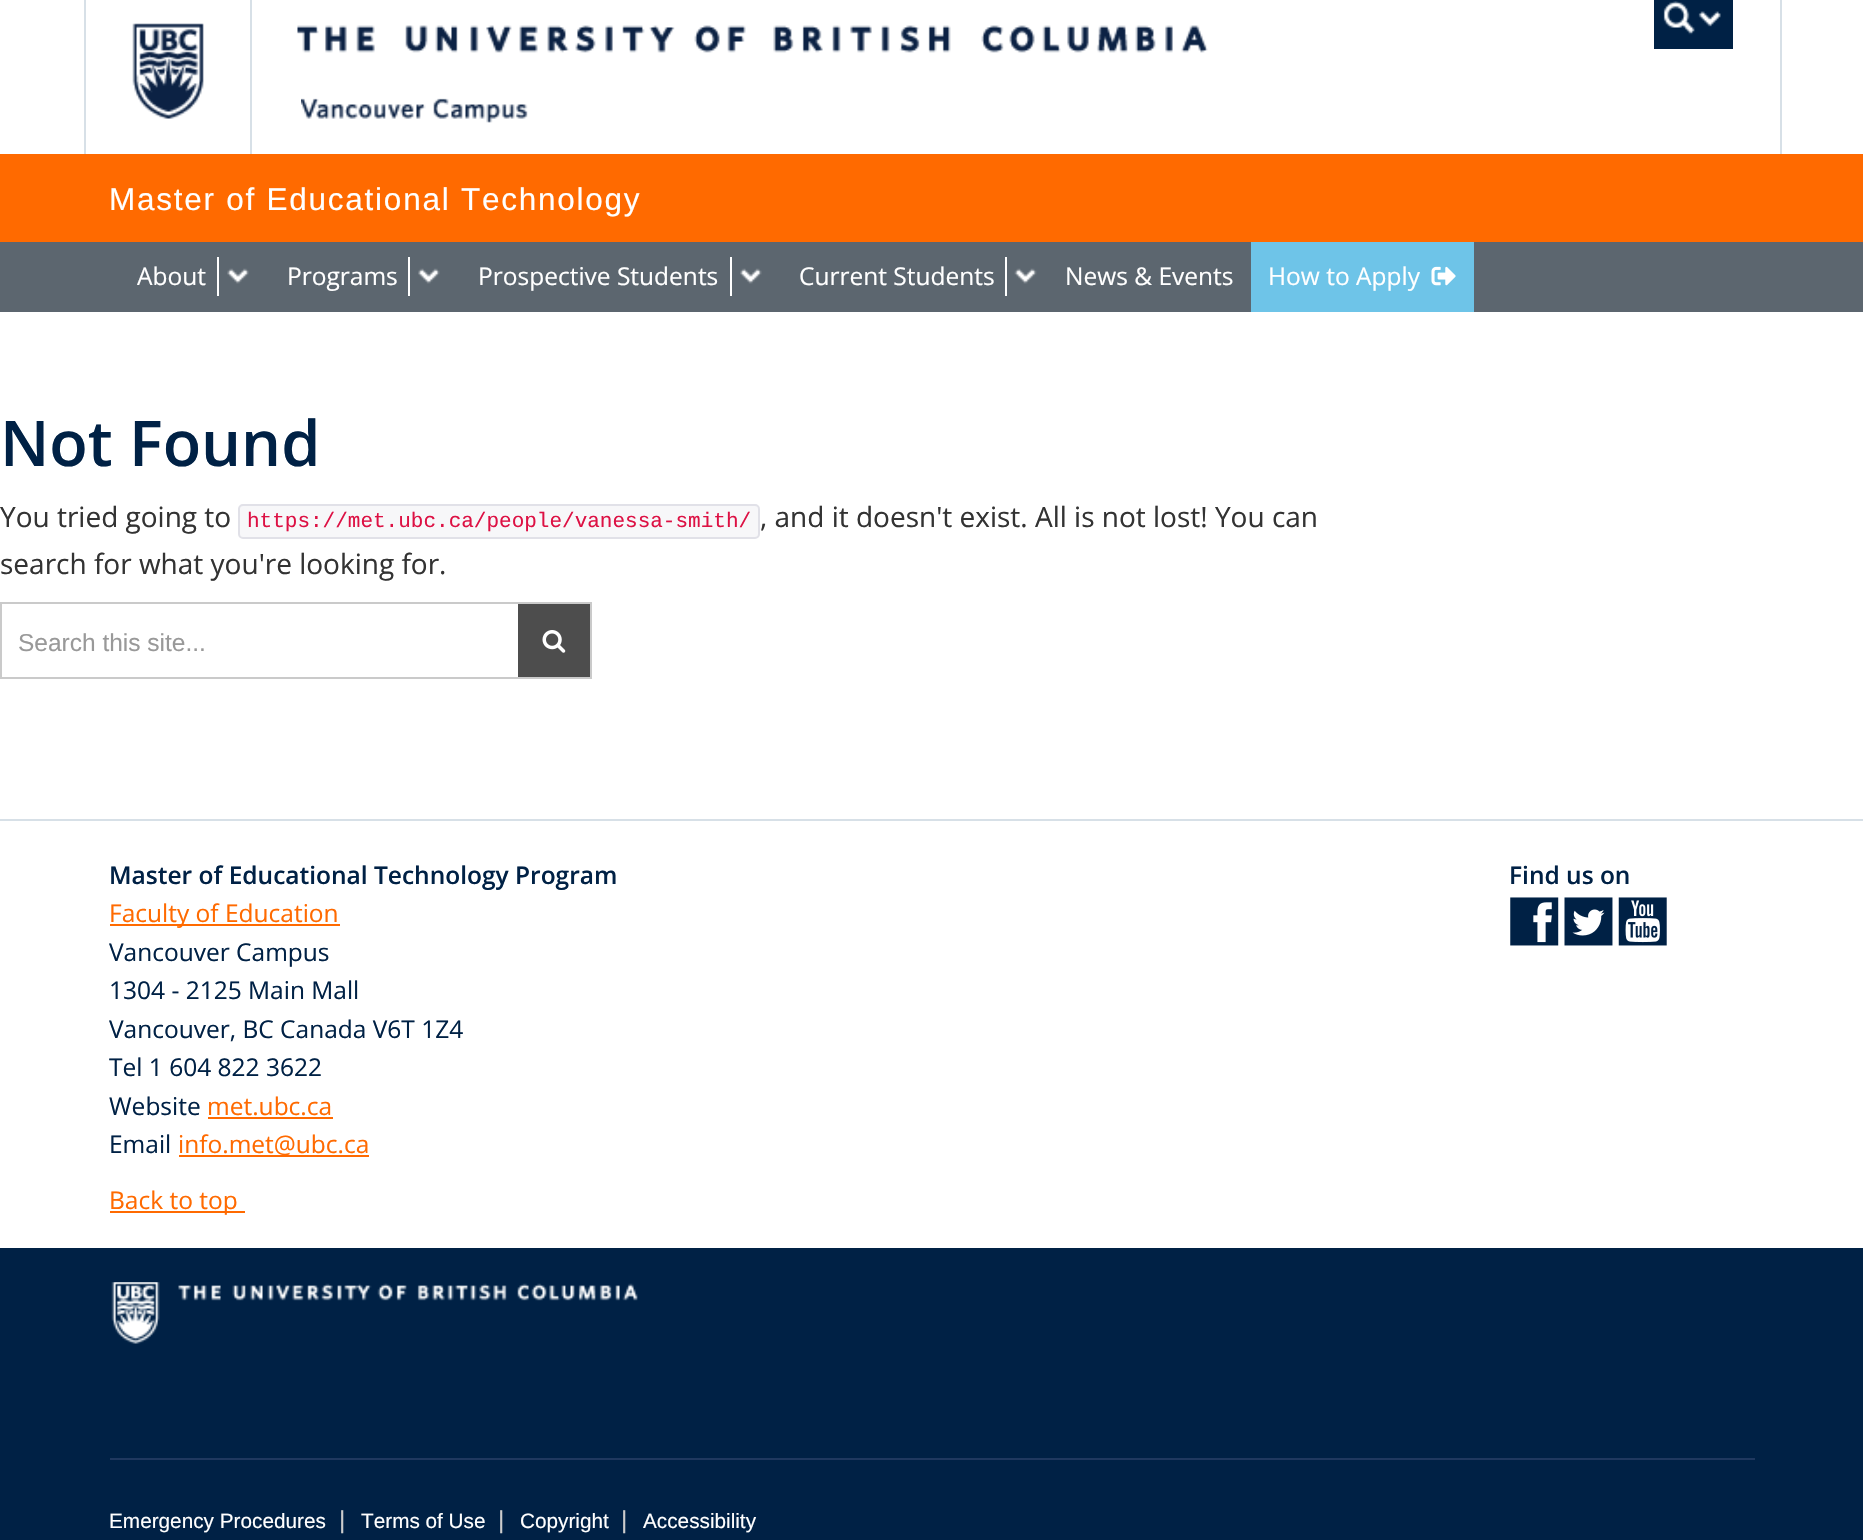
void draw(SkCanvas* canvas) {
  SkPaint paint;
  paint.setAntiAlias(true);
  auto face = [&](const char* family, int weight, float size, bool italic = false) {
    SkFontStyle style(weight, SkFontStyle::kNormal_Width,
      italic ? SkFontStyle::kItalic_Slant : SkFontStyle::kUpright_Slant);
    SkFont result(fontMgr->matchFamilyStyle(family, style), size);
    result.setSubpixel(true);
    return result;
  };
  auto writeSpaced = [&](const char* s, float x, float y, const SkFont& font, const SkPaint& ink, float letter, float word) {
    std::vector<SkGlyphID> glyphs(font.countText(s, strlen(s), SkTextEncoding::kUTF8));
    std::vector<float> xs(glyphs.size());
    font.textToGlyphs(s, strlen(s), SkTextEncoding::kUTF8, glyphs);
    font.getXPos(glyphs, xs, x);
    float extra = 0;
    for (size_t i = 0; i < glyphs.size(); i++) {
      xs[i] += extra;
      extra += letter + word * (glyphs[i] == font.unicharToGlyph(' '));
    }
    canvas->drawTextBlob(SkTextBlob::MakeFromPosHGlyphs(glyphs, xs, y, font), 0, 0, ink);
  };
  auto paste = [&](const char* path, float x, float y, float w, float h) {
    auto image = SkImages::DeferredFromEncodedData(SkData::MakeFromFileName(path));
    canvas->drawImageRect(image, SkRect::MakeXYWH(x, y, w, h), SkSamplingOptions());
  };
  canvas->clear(0xffffffff);
  paint.setColor(0xffd7e0e7);
  canvas->drawRect(SkRect::MakeXYWH(1780, 0, 2, 154), paint);
  canvas->drawRect(SkRect::MakeXYWH(84, 0, 2, 154), paint);
  paste("img/1.png", 132, 23, 72, 96);
  paste("img/2.png", 297, 25, 911, 28);
  canvas->drawRect(SkRect::MakeXYWH(250, 0, 2, 154), paint);
  paint.setColor(0xff002145);
  canvas->drawRect(SkRect::MakeXYWH(1654, 0, 79, 49), paint);
  paste("img/3.png", 1663, 1, 58, 34);
  paste("img/4.png", 301, 98, 227, 25);
  {
    const struct { float x, y, w, h; SkColor color; } items[] = {
      {0, 154, 1863, 88, 0xffff6a00},
      {0, 242, 1863, 70, 0xff5c666f},
      {217, 257, 2, 39, 0xffffffff},
    };
    for (auto [x, y, w, h, color] : items) {
      paint.setColor(color);
      canvas->drawRect(SkRect::MakeXYWH(x, y, w, h), paint);
    }
  }
  paste("img/5.png", 227, 268, 22, 16);
  canvas->drawRect(SkRect::MakeXYWH(408, 257, 2, 39), paint);
  paste("img/6.png", 418, 268, 22, 16);
  canvas->drawRect(SkRect::MakeXYWH(730, 257, 2, 39), paint);
  paste("img/6.png", 740, 268, 22, 16);
  canvas->drawRect(SkRect::MakeXYWH(1005, 257, 2, 39), paint);
  paste("img/7.png", 1014, 268, 23, 16);
  paint.setColor(0xff6ec4e8);
  canvas->drawRect(SkRect::MakeXYWH(1251, 242, 223, 70), paint);
  paste("img/8.png", 1431, 266, 25, 20);
  paint.setColor(0xfff7f7f9);
  canvas->drawRoundRect(SkRect::MakeXYWH(239, 505, 520, 33), 4, 4, paint);
  paint.setStroke(true);
  paint.setStrokeWidth(2);
  paint.setColor(0xffe1e1e8);
  canvas->drawRoundRect(SkRect::MakeXYWH(239, 505, 520, 33), 4, 4, paint);
  paint.setColor(0xffcacaca);
  canvas->drawRect(SkRect::MakeXYWH(1, 603, 590, 75), paint);
  paint.setStroke(false);
  paint.setColor(0xff4d4d4d);
  canvas->drawRect(SkRect::MakeXYWH(518, 604, 72, 73), paint);
  paste("img/9.png", 542, 630, 24, 23);
  {
    const struct { float x, y, w, h; SkColor color; } items[] = {
      {0, 1248, 1863, 292, 0xff002145},
      {0, 819, 1863, 2, 0xffd7e0e7},
      {110, 924, 230, 2, 0xffff6a00},
      {208, 1117, 125, 2, 0xffff6a00},
      {179, 1155, 190, 2, 0xffff6a00},
    };
    for (auto [x, y, w, h, color] : items) {
      paint.setColor(color);
      canvas->drawRect(SkRect::MakeXYWH(x, y, w, h), paint);
    }
  }
  paste("img/10.png", 1510, 897, 49, 49);
  paste("img/11.png", 1564, 897, 49, 49);
  paste("img/12.png", 1618, 897, 49, 49);
  canvas->drawRect(SkRect::MakeXYWH(110, 1211, 135, 2), paint);
  paste("img/13.png", 111, 1282, 527, 62);
  paint.setColor(0xff1f385f);
  canvas->drawRect(SkRect::MakeXYWH(110, 1458, 1645, 2), paint);
  auto f0 = face("Liberation Sans", 400, 31.5f);
  paint.setColor(0xffffffff);
  writeSpaced("Master of Educational Technology", 109, 210, f0, paint, 1.75f, 0);
  auto f1 = face("Open Sans", 400, 24.5f);
  {
    const struct { const char* s; float x, y; } items[] = {
      {"About", 137, 285},
      {"Programs", 287, 285},
      {"Prospective Students", 478, 285},
      {"Current Students", 799, 285},
      {"News & Events", 1065, 285},
      {"How to Apply", 1268, 285},
    };
    for (auto [s, x, y] : items) {
      canvas->drawString(s, x, y, f1, paint);
    }
  }
  auto f2 = face("Open Sans", 600, 63);
  paint.setColor(0xff002145);
  canvas->drawString("Not Found", 0, 466, f2, paint);
  auto f3 = face("Open Sans", 400, 28);
  paint.setColor(0xff333333);
  canvas->drawString("You tried going to", 0, 527, f3, paint);
  auto f4 = face("Liberation Mono", 400, 21);
  paint.setColor(0xffdd1144);
  canvas->drawString("https://met.ubc.ca/people/vanessa-smith/", 247, 527, f4, paint);
  paint.setColor(0xff333333);
  canvas->drawString(", and it doesn't exist. All is not lost! You can", 760, 527, f3, paint);
  canvas->drawString("search for what you're looking for.", 0, 574, f3, paint);
  auto f5 = face("Liberation Sans", 400, 24.5f);
  paint.setColor(0xff999999);
  canvas->drawString("Search this site...", 18, 651, f5, paint);
  auto f6 = face("Open Sans", 600, 24.5f);
  paint.setColor(0xff002145);
  canvas->drawString("Master of Educational Technology Program", 109, 884, f6, paint);
  paint.setColor(0xffff6a00);
  canvas->drawString("Faculty of Education", 109, 922, f1, paint);
  paint.setColor(0xff002145);
  {
    const struct { const char* s; float x, y; } items[] = {
      {"Vancouver Campus", 109, 961},
      {"1304 - 2125 Main Mall", 109, 999},
      {"Vancouver, BC Canada V6T 1Z4", 109, 1038},
      {"Tel 1 604 822 3622", 109, 1076},
      {"Website", 109, 1115},
    };
    for (auto [s, x, y] : items) {
      canvas->drawString(s, x, y, f1, paint);
    }
  }
  paint.setColor(0xffff6a00);
  canvas->drawString("met.ubc.ca", 207, 1115, f1, paint);
  paint.setColor(0xff002145);
  canvas->drawString("Email", 109, 1153, f1, paint);
  paint.setColor(0xffff6a00);
  canvas->drawString("info.met@ubc.ca", 178, 1153, f1, paint);
  paint.setColor(0xff002145);
  canvas->drawString("Find us on", 1509, 884, f6, paint);
  paint.setColor(0xffff6a00);
  canvas->drawString("Back to top", 109, 1209, f1, paint);
  auto f7 = face("Liberation Sans", 400, 20.75f);
  paint.setColor(0xffffffff);
  canvas->drawString("Emergency Procedures", 109, 1528, f7, paint);
  paint.setColor(0xffcccccc);
  canvas->drawString("|", 339, 1528, f5, paint);
  paint.setColor(0xffffffff);
  canvas->drawString("Terms of Use", 361, 1528, f7, paint);
  paint.setColor(0xffcccccc);
  canvas->drawString("|", 498, 1528, f5, paint);
  paint.setColor(0xffffffff);
  canvas->drawString("Copyright", 520, 1528, f7, paint);
  paint.setColor(0xffcccccc);
  canvas->drawString("|", 621, 1528, f5, paint);
  paint.setColor(0xffffffff);
  canvas->drawString("Accessibility", 643, 1528, f7, paint);
}
